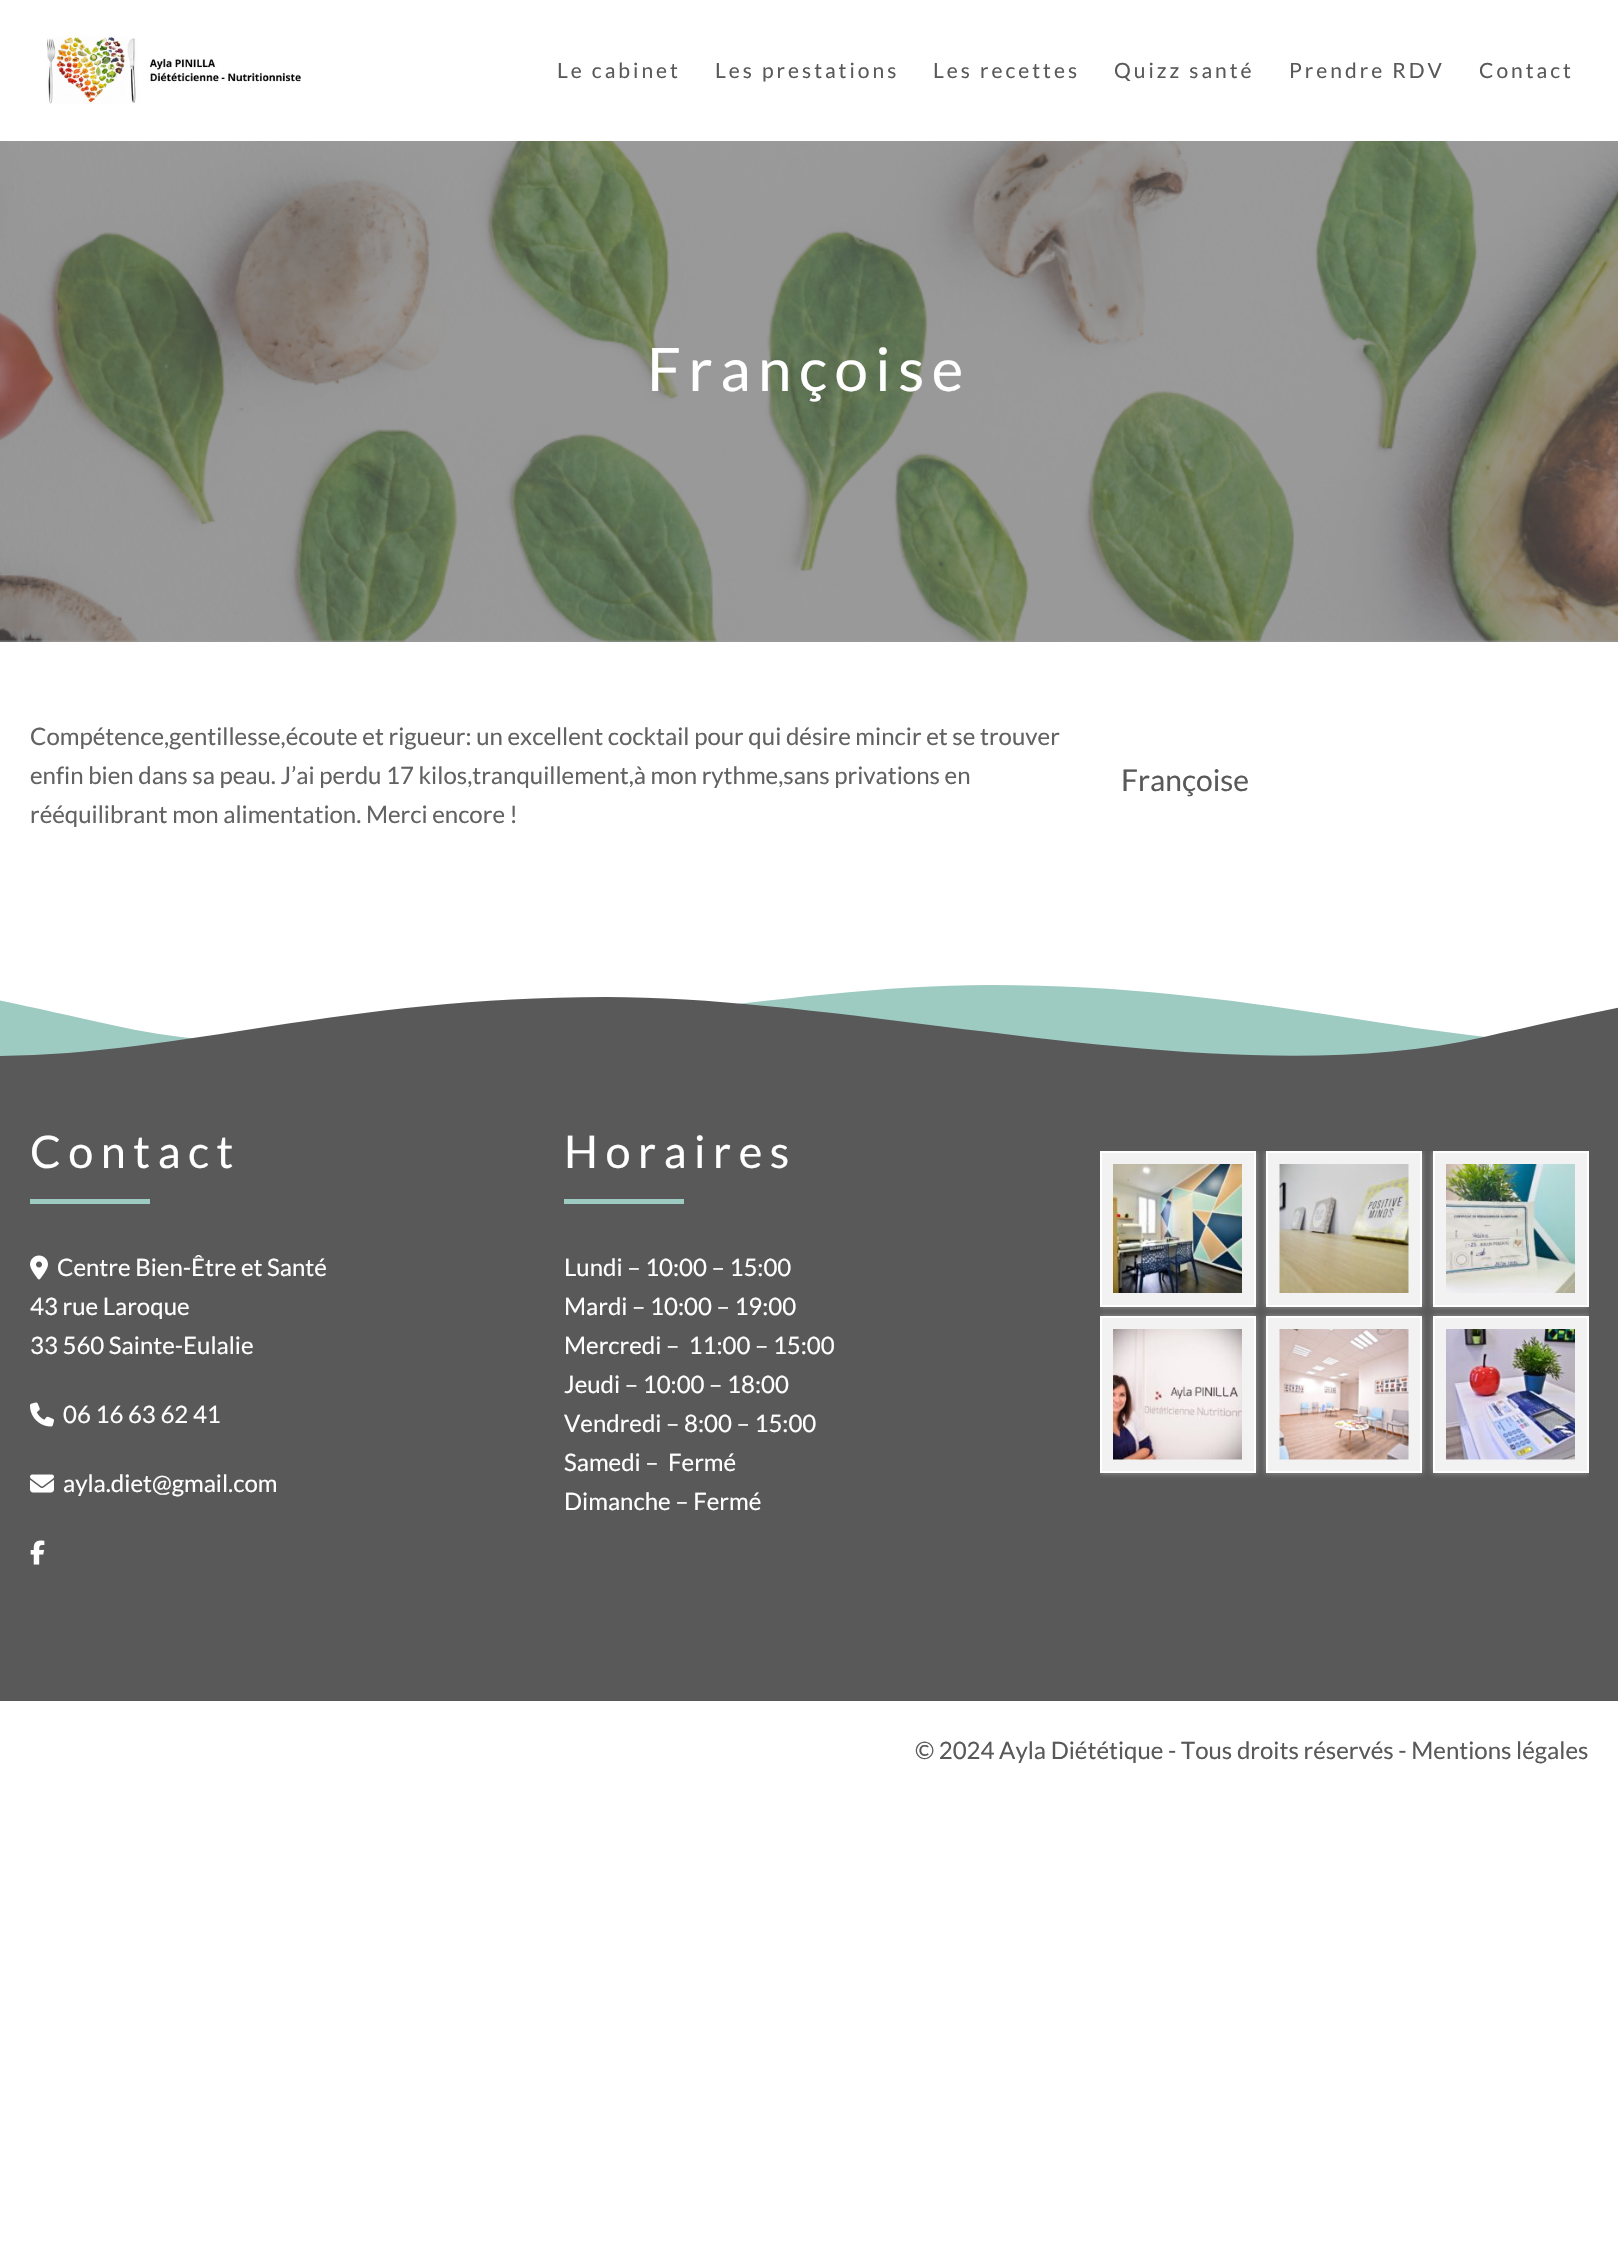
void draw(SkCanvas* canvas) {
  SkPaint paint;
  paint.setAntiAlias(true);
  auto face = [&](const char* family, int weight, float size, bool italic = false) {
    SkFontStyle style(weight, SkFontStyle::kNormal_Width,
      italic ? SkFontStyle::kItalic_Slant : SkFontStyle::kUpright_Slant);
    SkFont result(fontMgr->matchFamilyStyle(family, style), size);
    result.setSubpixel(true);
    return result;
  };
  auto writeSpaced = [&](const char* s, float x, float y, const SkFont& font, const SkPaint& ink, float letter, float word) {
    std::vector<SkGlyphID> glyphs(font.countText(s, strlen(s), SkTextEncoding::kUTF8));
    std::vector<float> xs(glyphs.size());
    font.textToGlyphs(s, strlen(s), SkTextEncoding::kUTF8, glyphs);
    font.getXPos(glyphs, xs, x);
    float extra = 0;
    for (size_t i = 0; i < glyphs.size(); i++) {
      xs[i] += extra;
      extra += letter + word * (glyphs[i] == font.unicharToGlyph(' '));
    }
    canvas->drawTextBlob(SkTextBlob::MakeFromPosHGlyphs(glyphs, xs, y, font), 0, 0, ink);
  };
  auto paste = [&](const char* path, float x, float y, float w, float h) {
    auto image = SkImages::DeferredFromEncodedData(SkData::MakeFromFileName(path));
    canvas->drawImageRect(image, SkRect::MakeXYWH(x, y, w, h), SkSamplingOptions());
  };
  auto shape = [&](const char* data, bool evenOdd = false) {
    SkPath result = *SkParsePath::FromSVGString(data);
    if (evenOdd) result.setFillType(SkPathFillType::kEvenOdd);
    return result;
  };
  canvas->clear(0xffffffff);
  paste("img/1.png", 47, 36, 254, 68);
  paste("img/2.png", 0, 141, 1618, 501);
  paint.setColor(0xff595959);
  canvas->drawRect(SkRect::MakeXYWH(0, 1078, 1618, 623), paint);
  paint.setColor(0xff9dcac1);
  canvas->drawPath(shape("M-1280 1066L-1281 1012C-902 1046-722 1030-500 986C-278 941-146 967 112 1025C370 1084 724 985 990 985C1257 985 1417 1044 1605 1044V1066Z"), paint);
  paint.setColor(0xff595959);
  canvas->drawPath(shape("M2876 1078L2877 1024C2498 1058 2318 1042 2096 998C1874 953 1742 979 1484 1037C1226 1096 872 997 606 997C339 997 179 1056-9 1056V1078Z"), paint);
  paint.setColor(0xff9dcac1);
  canvas->drawRect(SkRect::MakeXYWH(30, 1199, 120, 5), paint);
  paste("img/3.png", 30, 1255, 18, 25);
  paste("img/4.png", 30, 1402, 24, 25);
  paste("img/5.png", 30, 1474, 24, 19);
  paste("img/6.png", 30, 1540, 15, 25);
  canvas->drawRect(SkRect::MakeXYWH(564, 1199, 120, 5), paint);
  canvas->save();
  canvas->clipRect(SkRect::MakeXYWH(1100, 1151, 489, 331));
  paint.setColor(0xff999999);
  paint.setMaskFilter(SkMaskFilter::MakeBlur(kNormal_SkBlurStyle, 3));
  canvas->drawRect(SkRect::MakeXYWH(1100, 1151, 156, 156), paint);
  paint.setMaskFilter(nullptr);
  canvas->restore();
  paint.setColor(0xfff2f2f2);
  canvas->drawRect(SkRect::MakeXYWH(1101, 1152, 154, 154), paint);
  paint.setStroke(true);
  paint.setStrokeWidth(2);
  paint.setColor(0xffffffff);
  canvas->drawRect(SkRect::MakeXYWH(1101, 1152, 154, 154), paint);
  paste("img/7.png", 1113, 1164, 129, 129);
  canvas->save();
  canvas->clipRect(SkRect::MakeXYWH(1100, 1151, 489, 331));
  paint.setStroke(false);
  paint.setColor(0xff999999);
  paint.setMaskFilter(SkMaskFilter::MakeBlur(kNormal_SkBlurStyle, 3));
  canvas->drawRect(SkRect::MakeXYWH(1266, 1151, 156, 156), paint);
  paint.setMaskFilter(nullptr);
  canvas->restore();
  paint.setColor(0xfff2f2f2);
  canvas->drawRect(SkRect::MakeXYWH(1267, 1152, 154, 154), paint);
  paint.setStroke(true);
  paint.setColor(0xffffffff);
  canvas->drawRect(SkRect::MakeXYWH(1267, 1152, 154, 154), paint);
  paste("img/8.png", 1279, 1164, 130, 129);
  canvas->save();
  canvas->clipRect(SkRect::MakeXYWH(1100, 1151, 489, 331));
  paint.setStroke(false);
  paint.setColor(0xff999999);
  paint.setMaskFilter(SkMaskFilter::MakeBlur(kNormal_SkBlurStyle, 3));
  canvas->drawRect(SkRect::MakeXYWH(1433, 1151, 156, 156), paint);
  paint.setMaskFilter(nullptr);
  canvas->restore();
  paint.setColor(0xfff2f2f2);
  canvas->drawRect(SkRect::MakeXYWH(1434, 1152, 154, 154), paint);
  paint.setStroke(true);
  paint.setColor(0xffffffff);
  canvas->drawRect(SkRect::MakeXYWH(1434, 1152, 154, 154), paint);
  paste("img/9.png", 1446, 1164, 129, 129);
  canvas->save();
  canvas->clipRect(SkRect::MakeXYWH(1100, 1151, 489, 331));
  paint.setStroke(false);
  paint.setColor(0xff999999);
  paint.setMaskFilter(SkMaskFilter::MakeBlur(kNormal_SkBlurStyle, 3));
  canvas->drawRect(SkRect::MakeXYWH(1100, 1316, 156, 157), paint);
  paint.setMaskFilter(nullptr);
  canvas->restore();
  paint.setColor(0xfff2f2f2);
  canvas->drawRect(SkRect::MakeXYWH(1101, 1317, 154, 155), paint);
  paint.setStroke(true);
  paint.setColor(0xffffffff);
  canvas->drawRect(SkRect::MakeXYWH(1101, 1317, 154, 155), paint);
  paste("img/10.png", 1113, 1329, 129, 131);
  paint.setStroke(false);
  paint.setColor(0xff999999);
  paint.setMaskFilter(SkMaskFilter::MakeBlur(kNormal_SkBlurStyle, 3));
  canvas->drawRect(SkRect::MakeXYWH(1266, 1316, 156, 157), paint);
  paint.setMaskFilter(nullptr);
  paint.setColor(0xfff2f2f2);
  canvas->drawRect(SkRect::MakeXYWH(1267, 1317, 154, 155), paint);
  paint.setStroke(true);
  paint.setColor(0xffffffff);
  canvas->drawRect(SkRect::MakeXYWH(1267, 1317, 154, 155), paint);
  paste("img/11.png", 1279, 1329, 130, 131);
  canvas->save();
  canvas->clipRect(SkRect::MakeXYWH(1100, 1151, 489, 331));
  paint.setStroke(false);
  paint.setColor(0xff999999);
  paint.setMaskFilter(SkMaskFilter::MakeBlur(kNormal_SkBlurStyle, 3));
  canvas->drawRect(SkRect::MakeXYWH(1433, 1316, 156, 157), paint);
  paint.setMaskFilter(nullptr);
  canvas->restore();
  paint.setColor(0xfff2f2f2);
  canvas->drawRect(SkRect::MakeXYWH(1434, 1317, 154, 155), paint);
  paint.setStroke(true);
  paint.setColor(0xffffffff);
  canvas->drawRect(SkRect::MakeXYWH(1434, 1317, 154, 155), paint);
  paste("img/12.png", 1446, 1329, 129, 131);
  auto f0 = face("Lato", 400, 21);
  paint.setStroke(false);
  paint.setColor(0xff595959);
  {
    const struct { const char* s; float x, y; } items[] = {
      {"Le cabinet", 557, 78},
      {"Les prestations", 715, 78},
      {"Les recettes", 933, 78},
      {"Quizz santé", 1114, 78},
      {"Prendre RDV", 1289, 78},
      {"Contact", 1479, 78},
    };
    for (auto [s, x, y] : items) {
      writeSpaced(s, x, y, f0, paint, 3, 0);
    }
  }
  auto f1 = face("Lato", 400, 60);
  paint.setColor(0xffffffff);
  writeSpaced("Françoise", 647, 391, f1, paint, 7.5f, 0);
  auto f2 = face("Lato", 400, 24);
  paint.setColor(0xff626262);
  {
    const struct { const char* s; float x, y; } items[] = {
      {"Compétence,gentillesse,écoute et rigueur: un excellent cocktail pour qui désire mincir et se trouver", 30, 745},
      {"enfin bien dans sa peau. J’ai perdu 17 kilos,tranquillement,à mon rythme,sans privations en", 30, 784},
      {"rééquilibrant mon alimentation. Merci encore !", 30, 823},
    };
    for (auto [s, x, y] : items) {
      canvas->drawString(s, x, y, f2, paint);
    }
  }
  auto f3 = face("Lato", 400, 30);
  paint.setColor(0xff595959);
  canvas->drawString("Françoise", 1121, 791, f3, paint);
  auto f4 = face("Lato", 400, 45);
  paint.setColor(0xffffffff);
  writeSpaced("Contact", 30, 1168, f4, paint, 7.5f, 0);
  {
    const struct { const char* s; float x, y; } items[] = {
      {"Centre Bien-Être et Santé", 57, 1276},
      {"43 rue Laroque", 30, 1315},
      {"33 560 Sainte-Eulalie", 30, 1354},
      {"06 16 63 62 41", 63, 1423},
      {"ayla.diet@gmail.com", 63, 1492},
    };
    for (auto [s, x, y] : items) {
      canvas->drawString(s, x, y, f2, paint);
    }
  }
  writeSpaced("Horaires", 564, 1168, f4, paint, 7.5f, 0);
  {
    const struct { const char* s; float x, y; } items[] = {
      {"Lundi – 10:00 – 15:00", 564, 1276},
      {"Mardi – 10:00 – 19:00", 564, 1315},
      {"Mercredi –  11:00 – 15:00", 564, 1354},
      {"Jeudi – 10:00 – 18:00", 564, 1393},
      {"Vendredi – 8:00 – 15:00", 564, 1432},
      {"Samedi –  Fermé", 564, 1471},
      {"Dimanche – Fermé", 564, 1510},
    };
    for (auto [s, x, y] : items) {
      canvas->drawString(s, x, y, f2, paint);
    }
  }
  paint.setColor(0xff595959);
  canvas->drawString("© 2024 Ayla Diététique - Tous droits réservés - Mentions légales", 915, 1759, f2, paint);
}
